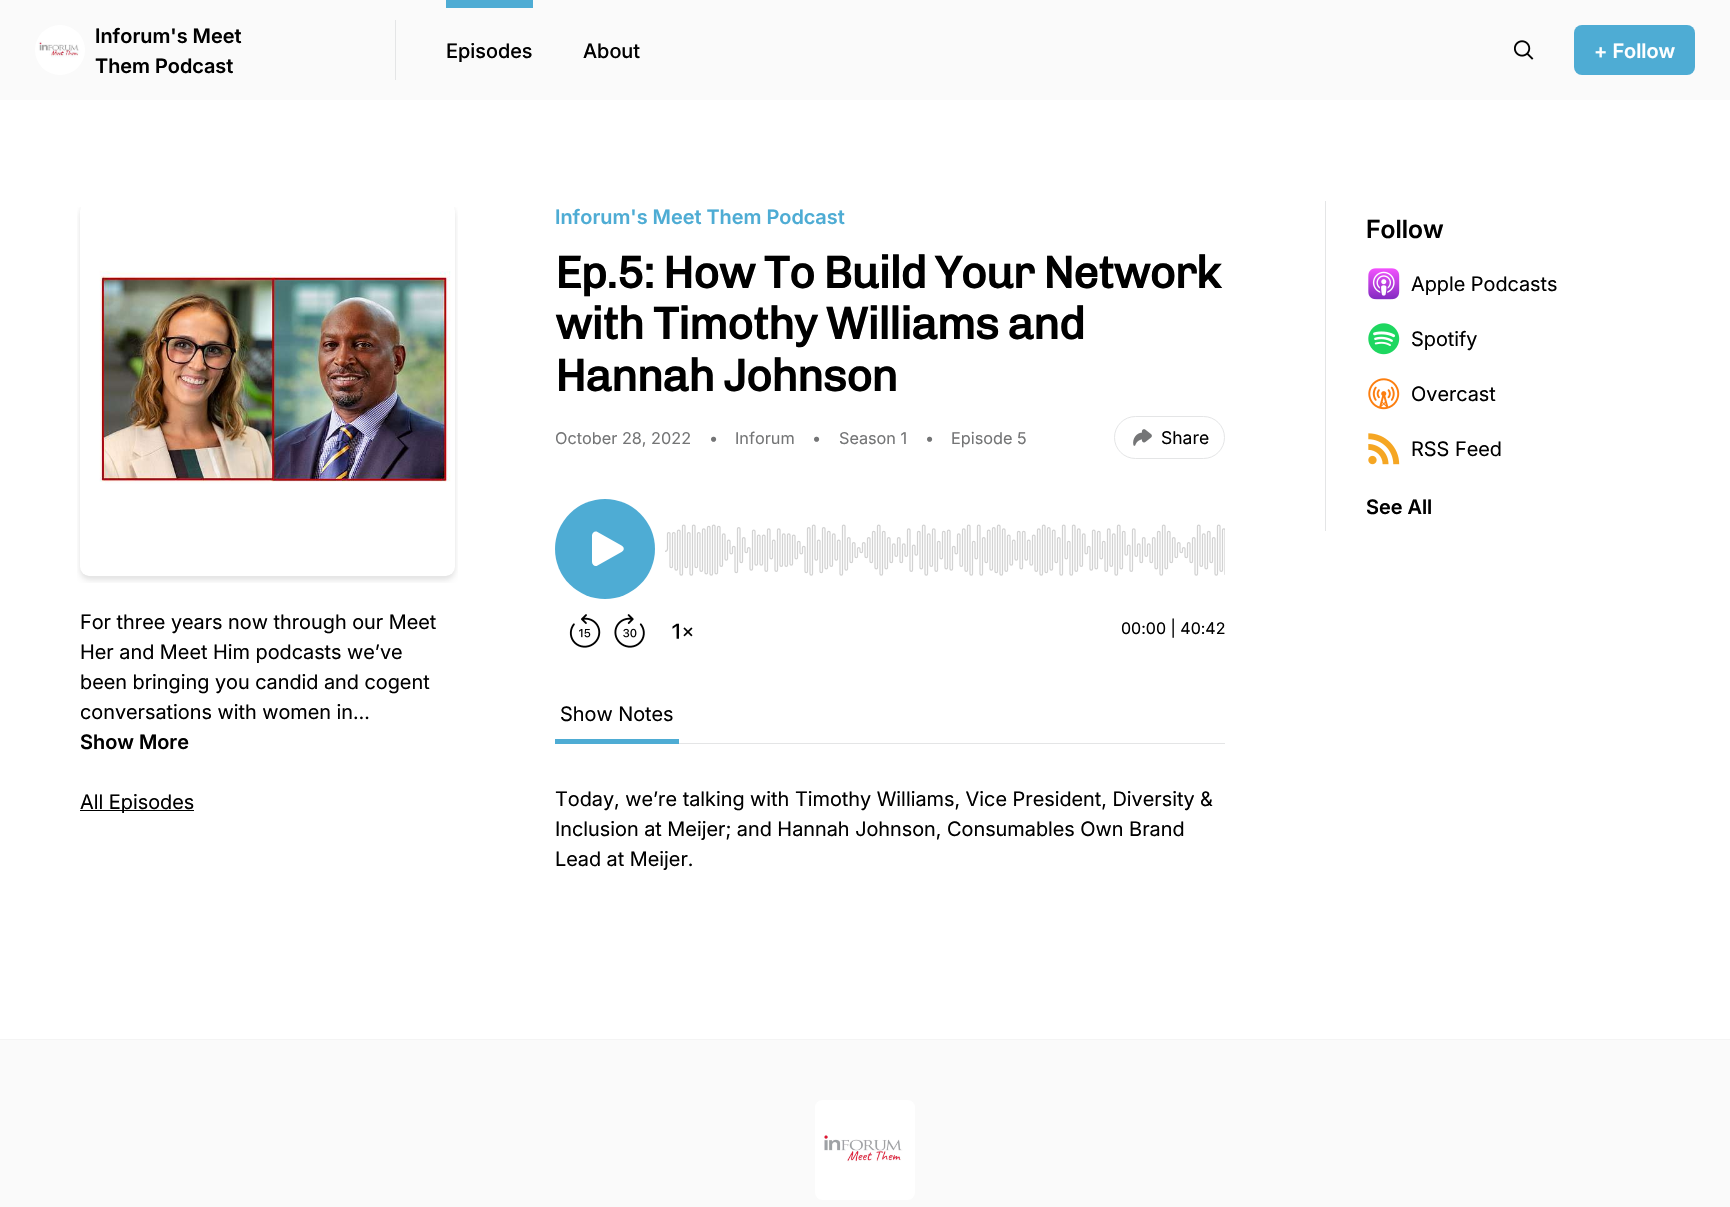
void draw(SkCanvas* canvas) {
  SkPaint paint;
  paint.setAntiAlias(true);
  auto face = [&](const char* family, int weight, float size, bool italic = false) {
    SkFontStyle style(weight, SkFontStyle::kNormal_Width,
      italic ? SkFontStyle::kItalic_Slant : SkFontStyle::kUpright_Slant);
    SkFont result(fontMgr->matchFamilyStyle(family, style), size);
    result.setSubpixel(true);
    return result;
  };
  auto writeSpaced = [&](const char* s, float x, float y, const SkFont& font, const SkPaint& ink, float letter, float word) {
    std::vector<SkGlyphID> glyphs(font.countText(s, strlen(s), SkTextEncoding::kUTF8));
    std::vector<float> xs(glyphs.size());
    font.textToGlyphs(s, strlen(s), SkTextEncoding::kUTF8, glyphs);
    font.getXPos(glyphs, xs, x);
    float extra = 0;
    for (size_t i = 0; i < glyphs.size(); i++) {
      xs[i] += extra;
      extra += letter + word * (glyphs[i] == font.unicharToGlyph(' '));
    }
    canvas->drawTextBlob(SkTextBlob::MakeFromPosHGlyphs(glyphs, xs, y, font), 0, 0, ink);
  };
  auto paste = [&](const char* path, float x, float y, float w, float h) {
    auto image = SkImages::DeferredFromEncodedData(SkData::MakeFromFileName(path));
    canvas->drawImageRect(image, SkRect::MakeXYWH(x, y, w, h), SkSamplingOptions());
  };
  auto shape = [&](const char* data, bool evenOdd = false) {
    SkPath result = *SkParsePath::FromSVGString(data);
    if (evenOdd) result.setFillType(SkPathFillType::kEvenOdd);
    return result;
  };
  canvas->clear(0xffffffff);
  paint.setColor(0xfffafafa);
  canvas->drawRect(SkRect::MakeXYWH(0, 0, 1730, 100), paint);
  paint.setColor(0xffe4e5e6);
  canvas->drawRect(SkRect::MakeXYWH(395, 20, 1, 60), paint);
  paste("img/1.png", 35, 25, 50, 50);
  paint.setColor(0xff4eacd4);
  canvas->drawRect(SkRect::MakeXYWH(446, 0, 87, 8), paint);
  paste("img/2.png", 1514, 40, 20, 20);
  canvas->drawRoundRect(SkRect::MakeXYWH(1574, 25, 121, 50), 8, 8, paint);
  paint.setStroke(true);
  paint.setStrokeWidth(1);
  paint.setColor(0xffe4e5e6);
  canvas->drawRoundRect(SkRect::MakeXYWH(1114.5f, 416.5f, 110, 42), 21, 21, paint);
  paste("img/3.png", 1133, 429, 19, 17);
  paste("img/4.png", 569, 614, 32, 34);
  paste("img/5.png", 614, 614, 31, 34);
  paste("img/6.png", 672, 623, 21, 16);
  paint.setStroke(false);
  paint.setColor(0xff4eacd4);
  canvas->drawCircle(605, 549, 50, paint);
  paint.setColor(0xffffffff);
  canvas->drawPath(shape("M592 535.5C592 532.5 595 530.5 597.5 532L621.5 545.5C624.5 547 624.5 550.5 621.5 552L597.5 565.5C595 567 592 565 592 562Z", true), paint);
  paste("img/7.png", 665, 524, 560, 52);
  {
    const struct { float x, y, w, h; SkColor color; } items[] = {
      {679, 743, 546, 1, 0xffe4e5e6},
      {555, 739, 124, 5, 0xff4eacd4},
      {1325, 201, 1, 330, 0xffe4e5e6},
    };
    for (auto [x, y, w, h, color] : items) {
      paint.setColor(color);
      canvas->drawRect(SkRect::MakeXYWH(x, y, w, h), paint);
    }
  }
  paste("img/8.png", 1368, 268, 32, 32);
  paste("img/9.png", 1368, 323, 32, 32);
  paste("img/10.png", 1368, 378, 32, 32);
  paste("img/11.png", 1368, 433, 32, 32);
  paste("img/12.png", 77, 207, 381, 376);
  {
    const struct { float x, y, w, h; SkColor color; } items[] = {
      {80, 810, 114, 1, 0xff000000},
      {0, 1040, 1730, 167, 0xfffafafa},
      {0, 1039, 1730, 1, 0xfff4f4f4},
    };
    for (auto [x, y, w, h, color] : items) {
      paint.setColor(color);
      canvas->drawRect(SkRect::MakeXYWH(x, y, w, h), paint);
    }
  }
  paste("img/13.png", 815, 1100, 100, 100);
  auto f0 = face("Inter", 600, 20);
  paint.setColor(0xff000000);
  canvas->drawString("Inforum's Meet", 95, 43, f0, paint);
  canvas->drawString("Them Podcast", 95, 73, f0, paint);
  auto f1 = face("Inter", 500, 20);
  canvas->drawString("Episodes", 446, 58, f1, paint);
  canvas->drawString("About", 583, 58, f1, paint);
  paint.setColor(0xffffffff);
  canvas->drawString("+ Follow", 1594, 58, f0, paint);
  paint.setColor(0xff4eacd4);
  canvas->drawString("Inforum's Meet Them Podcast", 555, 224, f0, paint);
  auto f2 = face("Chivo", 700, 45);
  paint.setColor(0xff000000);
  {
    const struct { const char* s; float x, y; } items[] = {
      {"Ep.5: How To Build Your Network", 555, 288},
      {"with Timothy Williams and", 555, 339},
      {"Hannah Johnson", 555, 391},
    };
    for (auto [s, x, y] : items) {
      writeSpaced(s, x, y, f2, paint, -1.1f, 0);
    }
  }
  auto f3 = face("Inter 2", 400, 16.25f);
  paint.setColor(0xff747576);
  {
    const struct { const char* s; float x, y; } items[] = {
      {"October 28, 2022", 555, 444},
      {"•", 709, 444},
      {"Inforum", 735, 444},
      {"•", 812, 444},
      {"Season 1", 839, 444},
      {"•", 925, 444},
      {"Episode 5", 951, 444},
    };
    for (auto [s, x, y] : items) {
      canvas->drawString(s, x, y, f3, paint);
    }
  }
  auto f4 = face("Inter 2", 400, 17.5f);
  paint.setColor(0xff000000);
  canvas->drawString("Share", 1161, 444, f4, paint);
  auto f5 = face("Inter 2", 400, 16);
  canvas->drawString("00:00 | 40:42", 1121, 634, f5, paint);
  auto f6 = face("Inter", 400, 20);
  {
    const struct { const char* s; float x, y; } items[] = {
      {"Show Notes", 560, 721},
      {"Today, we’re talking with Timothy Williams, Vice President, Diversity &", 555, 806},
      {"Inclusion at Meijer; and Hannah Johnson, Consumables Own Brand", 555, 836},
      {"Lead at Meijer.", 555, 866},
    };
    for (auto [s, x, y] : items) {
      canvas->drawString(s, x, y, f6, paint);
    }
  }
  auto f7 = face("Inter 2", 600, 25);
  canvas->drawString("Follow", 1366, 238, f7, paint);
  {
    const struct { const char* s; float x, y; } items[] = {
      {"Apple Podcasts", 1411, 291},
      {"Spotify", 1411, 346},
      {"Overcast", 1411, 401},
      {"RSS Feed", 1411, 456},
    };
    for (auto [s, x, y] : items) {
      canvas->drawString(s, x, y, f6, paint);
    }
  }
  canvas->drawString("See All", 1366, 514, f0, paint);
  {
    const struct { const char* s; float x, y; } items[] = {
      {"For three years now through our Meet", 80, 629},
      {"Her and Meet Him podcasts we’ve", 80, 659},
      {"been bringing you candid and cogent", 80, 689},
      {"conversations with women in…", 80, 719},
    };
    for (auto [s, x, y] : items) {
      canvas->drawString(s, x, y, f6, paint);
    }
  }
  canvas->drawString("Show More", 80, 749, f0, paint);
  canvas->drawString("All Episodes", 80, 809, f6, paint);
}
